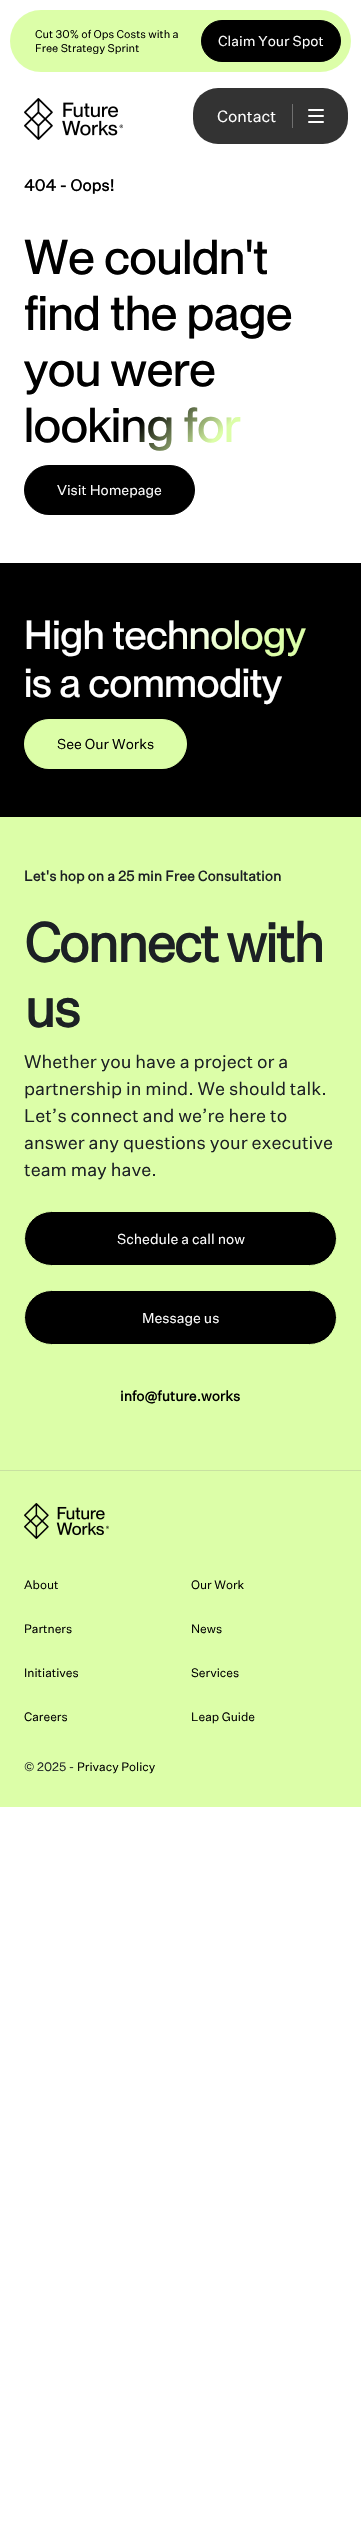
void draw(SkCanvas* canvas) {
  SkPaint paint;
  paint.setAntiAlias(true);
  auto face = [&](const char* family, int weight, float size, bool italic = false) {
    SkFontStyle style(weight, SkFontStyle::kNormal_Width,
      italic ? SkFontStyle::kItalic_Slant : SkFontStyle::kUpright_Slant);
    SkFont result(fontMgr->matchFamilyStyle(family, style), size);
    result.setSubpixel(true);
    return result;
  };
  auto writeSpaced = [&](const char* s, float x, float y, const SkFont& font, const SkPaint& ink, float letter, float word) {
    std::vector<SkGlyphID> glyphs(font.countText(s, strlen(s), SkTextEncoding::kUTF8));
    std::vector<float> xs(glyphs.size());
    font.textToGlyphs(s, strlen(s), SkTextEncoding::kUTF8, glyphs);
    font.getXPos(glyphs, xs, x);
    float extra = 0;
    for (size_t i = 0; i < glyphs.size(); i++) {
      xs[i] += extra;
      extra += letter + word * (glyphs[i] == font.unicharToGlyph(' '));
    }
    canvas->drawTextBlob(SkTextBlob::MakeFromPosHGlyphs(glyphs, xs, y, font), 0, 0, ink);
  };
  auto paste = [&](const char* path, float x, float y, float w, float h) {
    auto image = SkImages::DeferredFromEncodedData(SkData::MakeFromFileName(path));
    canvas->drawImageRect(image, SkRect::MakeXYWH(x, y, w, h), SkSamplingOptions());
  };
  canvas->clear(0xffffffff);
  paint.setColor(0xffdcfea8);
  canvas->drawRoundRect(SkRect::MakeXYWH(10, 10, 341, 62), 31, 31, paint);
  paint.setColor(0xff000000);
  canvas->drawRoundRect(SkRect::MakeXYWH(201.5f, 20.5f, 139, 41), 20.5f, 20.5f, paint);
  paint.setStroke(true);
  paint.setStrokeWidth(1);
  canvas->drawRoundRect(SkRect::MakeXYWH(201.5f, 20.5f, 139, 41), 20.5f, 20.5f, paint);
  paste("img/1.png", 24, 98, 99, 42);
  paint.setStroke(false);
  paint.setColor(0xff333333);
  canvas->drawRoundRect(SkRect::MakeXYWH(193, 88, 155, 56), 25, 25, paint);
  paint.setColor(0xff707070);
  canvas->drawRect(SkRect::MakeXYWH(292, 104, 1, 24), paint);
  paint.setColor(0xffffffff);
  canvas->drawRoundRect(SkRect::MakeXYWH(308, 109, 16, 2), 1, 1, paint);
  canvas->drawRoundRect(SkRect::MakeXYWH(308, 115, 16, 2), 1, 1, paint);
  canvas->drawRoundRect(SkRect::MakeXYWH(308, 121, 16, 2), 1, 1, paint);
  paint.setColor(0xff000000);
  canvas->drawRoundRect(SkRect::MakeXYWH(24.5f, 465.5f, 170, 49), 24.5f, 24.5f, paint);
  paint.setStroke(true);
  canvas->drawRoundRect(SkRect::MakeXYWH(24.5f, 465.5f, 170, 49), 24.5f, 24.5f, paint);
  paint.setStroke(false);
  canvas->drawRect(SkRect::MakeXYWH(0, 563, 361, 254), paint);
  paint.setColor(0xffdcfea8);
  canvas->drawRoundRect(SkRect::MakeXYWH(24.5f, 719.5f, 162, 49), 24.5f, 24.5f, paint);
  paint.setStroke(true);
  canvas->drawRoundRect(SkRect::MakeXYWH(24.5f, 719.5f, 162, 49), 24.5f, 24.5f, paint);
  paint.setStroke(false);
  canvas->drawRect(SkRect::MakeXYWH(0, 817, 361, 653), paint);
  paint.setColor(0xffc8e1a1);
  canvas->drawRect(SkRect::MakeXYWH(0, 1470, 361, 1), paint);
  paint.setColor(0xff000000);
  canvas->drawRoundRect(SkRect::MakeXYWH(24.5f, 1211.5f, 312, 54), 27, 27, paint);
  paint.setStroke(true);
  paint.setColor(0xffdcfea8);
  canvas->drawRoundRect(SkRect::MakeXYWH(24.5f, 1211.5f, 312, 54), 27, 27, paint);
  paint.setStroke(false);
  paint.setColor(0xff000000);
  canvas->drawRoundRect(SkRect::MakeXYWH(24.5f, 1290.5f, 312, 54), 27, 27, paint);
  paint.setStroke(true);
  paint.setColor(0xffdcfea8);
  canvas->drawRoundRect(SkRect::MakeXYWH(24.5f, 1290.5f, 312, 54), 27, 27, paint);
  paint.setStroke(false);
  canvas->drawRect(SkRect::MakeXYWH(0, 1471, 361, 336), paint);
  paste("img/2.png", 24, 1503, 85, 36);
  auto f0 = face("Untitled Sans", 400, 11);
  paint.setColor(0xff000000);
  canvas->drawString("Cut 30% of Ops Costs with a", 35, 38, f0, paint);
  canvas->drawString("Free Strategy Sprint", 35, 52, f0, paint);
  auto f1 = face("Untitled Sans", 400, 14);
  paint.setColor(0xffffffff);
  canvas->drawString("Claim Your Spot", 218, 46, f1, paint);
  auto f2 = face("Untitled Sans", 400, 16);
  canvas->drawString("Contact", 217, 122, f2, paint);
  auto f3 = face("Untitled Sans", 700, 16);
  paint.setColor(0xff000000);
  canvas->drawString("404 - Oops!", 24, 191, f3, paint);
  auto f4 = face("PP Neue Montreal", 500, 48);
  {
    const struct { const char* s; float x, y; } items[] = {
      {"We couldn't", 24, 274},
      {"find the page", 24, 330},
      {"you were", 24, 386},
    };
    for (auto [s, x, y] : items) {
      writeSpaced(s, x, y, f4, paint, -0.25f, 0);
    }
  }
  {
    const SkColor colors[] = {0xff000000, 0xff000000, 0xffdcfea8};
    const float stops[] = {0, 0.5f, 0.83f};
    const SkPoint ends[] = {{66, 355}, {207, 495}};
    paint.setShader(SkGradientShader::MakeLinear(ends, colors, stops, 3, SkTileMode::kClamp));
    paint.setAlpha(255);
  }
  writeSpaced("looking for", 24, 442, f4, paint, -0.25f, 0);
  paint.setShader(nullptr);
  paint.setColor(0xffffffff);
  canvas->drawString("Visit Homepage", 57, 495, f1, paint);
  auto f5 = face("PP Neue Montreal", 500, 40);
  {
    const SkColor colors[] = {0xffffffff, 0xffffffff, 0xffdcfea8};
    const float stops[] = {0, 0.5f, 0.83f};
    const SkPoint ends[] = {{84, 551}, {253, 719}};
    paint.setShader(SkGradientShader::MakeLinear(ends, colors, stops, 3, SkTileMode::kClamp));
    paint.setAlpha(255);
  }
  writeSpaced("High technology", 24, 649, f5, paint, -0.25f, 0);
  paint.setShader(nullptr);
  paint.setColor(0xffffffff);
  writeSpaced("is a commodity", 24, 697, f5, paint, -0.25f, 0);
  paint.setColor(0xff000000);
  canvas->drawString("See Our Works", 57, 749, f1, paint);
  auto f6 = face("Untitled Sans", 700, 14);
  paint.setColor(0xff1c2024);
  canvas->drawString("Let's hop on a 25 min Free Consultation", 24, 881, f6, paint);
  auto f7 = face("Untitled Sans", 700, 54);
  writeSpaced("Connect with", 24, 962, f7, paint, -2.75f, 0);
  writeSpaced("us", 24, 1027, f7, paint, -2.75f, 0);
  auto f8 = face("Untitled Sans", 400, 18);
  {
    const struct { const char* s; float x, y; } items[] = {
      {"Whether you have a project or a", 24, 1068},
      {"partnership in mind. We should talk.", 24, 1095},
      {"Let’s connect and we’re here to", 24, 1122},
      {"answer any questions your executive", 24, 1149},
      {"team may have.", 24, 1176},
    };
    for (auto [s, x, y] : items) {
      canvas->drawString(s, x, y, f8, paint);
    }
  }
  paint.setColor(0xffffffff);
  canvas->drawString("Schedule a call now", 117, 1244, f1, paint);
  canvas->drawString("Message us", 142, 1323, f1, paint);
  paint.setColor(0xff000000);
  canvas->drawString("info@future.works", 120, 1401, f6, paint);
  auto f9 = face("Untitled Sans", 400, 12);
  {
    const struct { const char* s; float x, y; } items[] = {
      {"About", 24, 1589},
      {"Our Work", 191, 1589},
      {"Partners", 24, 1633},
      {"News", 191, 1633},
      {"Initiatives", 24, 1677},
      {"Services", 191, 1677},
      {"Careers", 24, 1721},
      {"Leap Guide", 191, 1721},
    };
    for (auto [s, x, y] : items) {
      canvas->drawString(s, x, y, f9, paint);
    }
  }
  paint.setColor(0xff1c2024);
  canvas->drawString("© 2025 -", 24, 1771, f9, paint);
  paint.setColor(0xff000000);
  canvas->drawString("Privacy Policy", 77, 1771, f9, paint);
}
